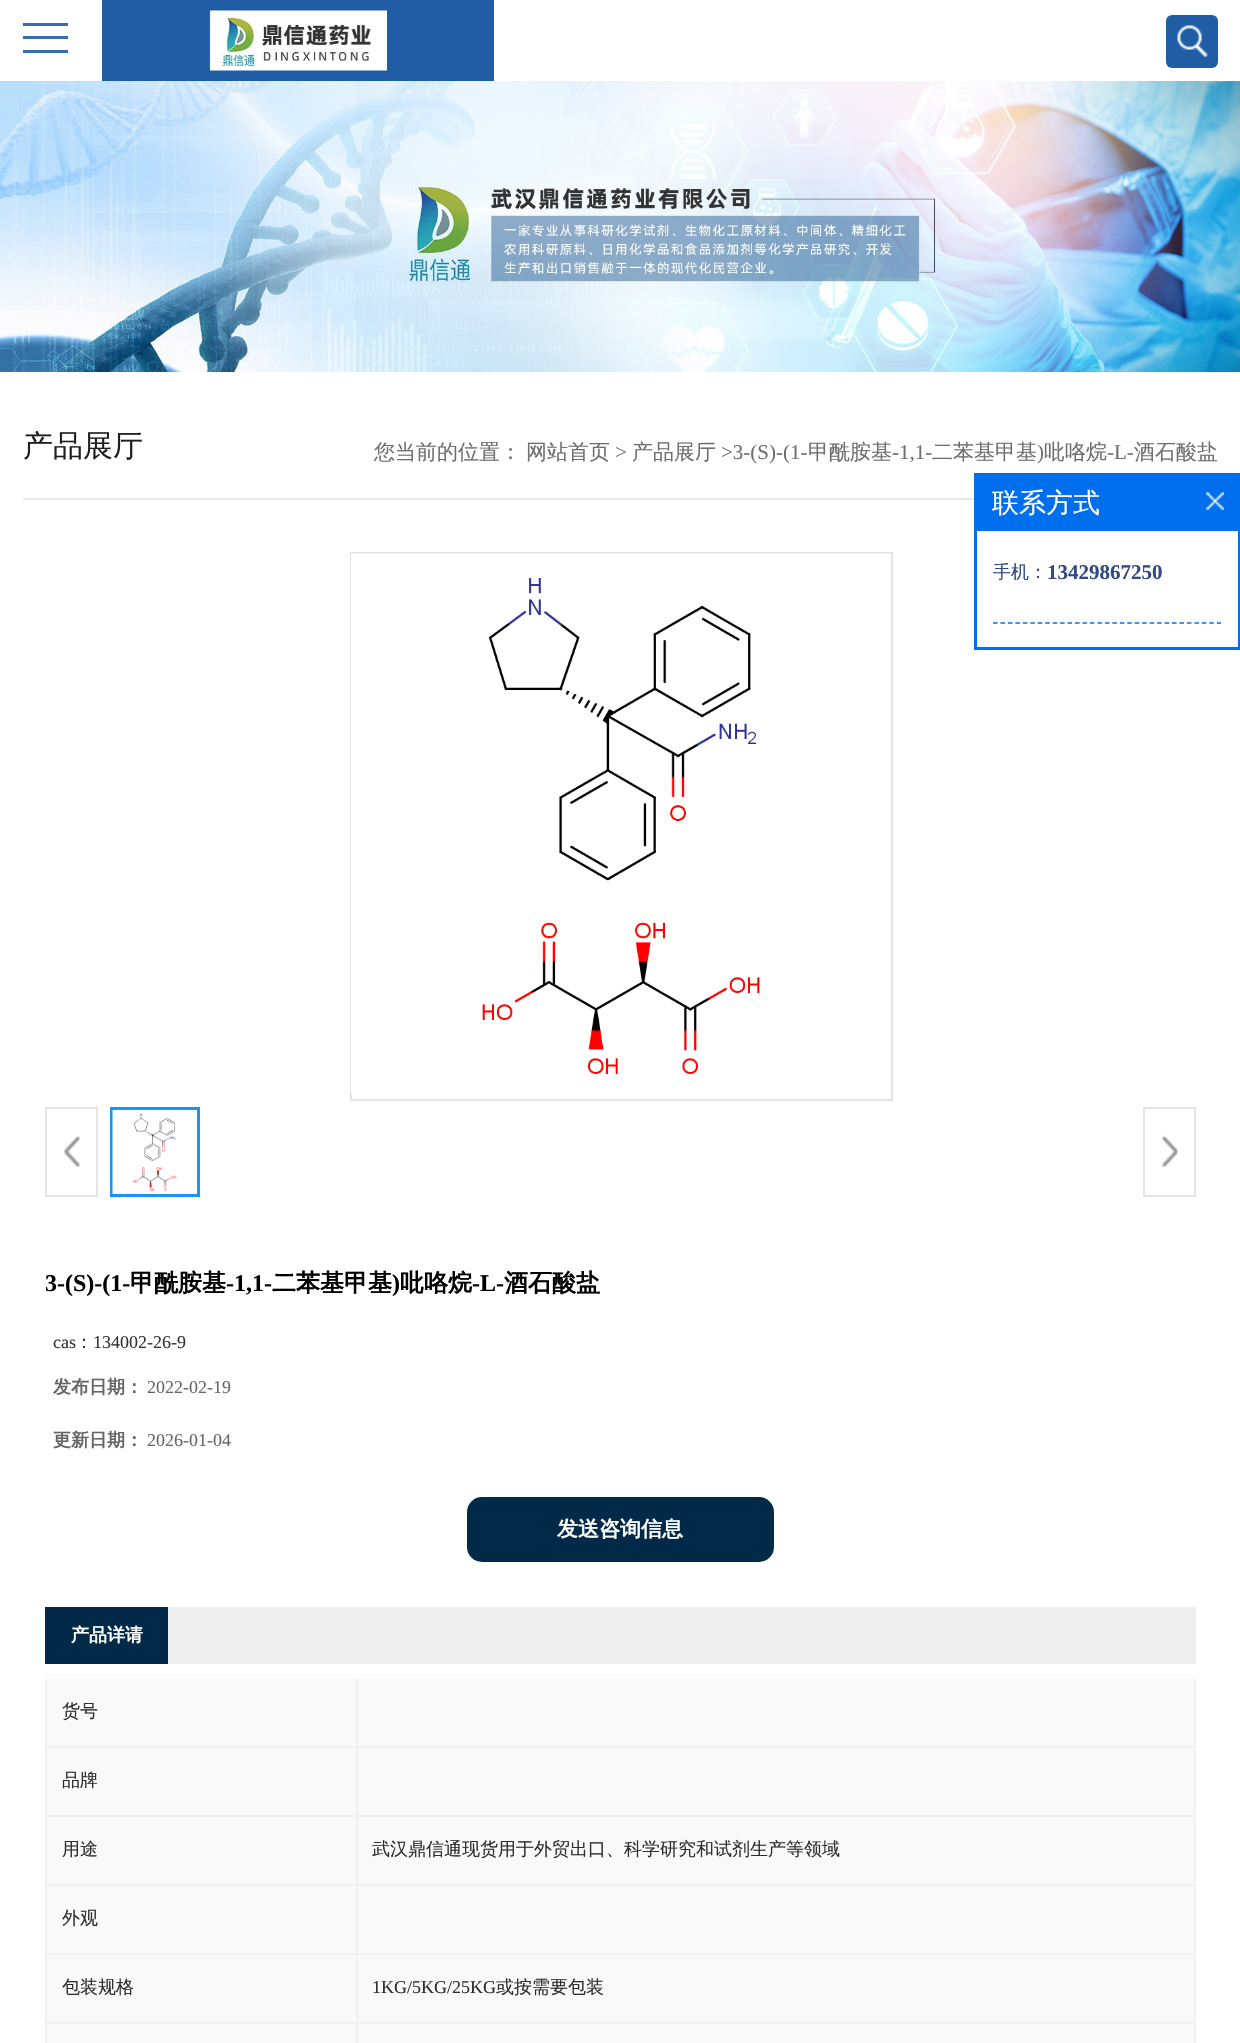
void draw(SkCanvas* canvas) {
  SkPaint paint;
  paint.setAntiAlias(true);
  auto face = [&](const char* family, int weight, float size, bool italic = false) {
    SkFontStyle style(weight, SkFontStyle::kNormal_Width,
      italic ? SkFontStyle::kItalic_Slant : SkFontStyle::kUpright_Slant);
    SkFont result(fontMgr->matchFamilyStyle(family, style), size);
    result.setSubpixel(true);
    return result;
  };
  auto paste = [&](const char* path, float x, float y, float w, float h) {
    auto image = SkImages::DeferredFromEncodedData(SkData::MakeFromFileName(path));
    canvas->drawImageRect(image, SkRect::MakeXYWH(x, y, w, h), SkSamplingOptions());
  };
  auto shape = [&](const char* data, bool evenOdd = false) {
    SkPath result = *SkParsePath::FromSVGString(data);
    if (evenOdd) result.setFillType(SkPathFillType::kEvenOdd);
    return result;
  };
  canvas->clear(0xffffffff);
  {
    const struct { float x, y, w, h; SkColor color; } items[] = {
      {23, 23, 45, 3, 0xff366dae},
      {23, 36, 45, 3, 0xff366dae},
      {23, 50, 45, 3, 0xff366dae},
      {102, 0, 392, 81, 0xff205da5},
    };
    for (auto [x, y, w, h, color] : items) {
      paint.setColor(color);
      canvas->drawRect(SkRect::MakeXYWH(x, y, w, h), paint);
    }
  }
  paste("img/1.png", 209, 10, 178, 61);
  canvas->drawRoundRect(SkRect::MakeXYWH(1166, 15, 52, 53), 6, 6, paint);
  paste("img/2.png", 1177, 25, 31, 32);
  paste("img/3.png", 0, 81, 1240, 291);
  paint.setColor(0xffeaeaea);
  canvas->drawRect(SkRect::MakeXYWH(23, 498, 951, 2), paint);
  paint.setStroke(true);
  paint.setStrokeWidth(2);
  paint.setColor(0xffe4e4e4);
  canvas->drawRect(SkRect::MakeXYWH(351, 553, 541, 547), paint);
  paste("img/4.png", 351, 553, 540, 541);
  paste("img/5.png", 64, 1135, 16, 32);
  paint.setColor(0xffe5e5e5);
  canvas->drawRect(SkRect::MakeXYWH(46, 1108, 51, 88), paint);
  paint.setStrokeWidth(3);
  paint.setColor(0xff1b94f6);
  canvas->drawRect(SkRect::MakeXYWH(111.5f, 1108.5f, 87, 87), paint);
  paste("img/6.png", 112, 1110, 65, 84);
  paste("img/7.png", 1162, 1135, 16, 32);
  paint.setStrokeWidth(2);
  paint.setColor(0xffe5e5e5);
  canvas->drawRect(SkRect::MakeXYWH(1144, 1108, 51, 88), paint);
  paint.setStroke(false);
  paint.setColor(0xff002a48);
  canvas->drawRoundRect(SkRect::MakeXYWH(467, 1497, 307, 65), 15, 15, paint);
  {
    const struct { float x, y, w, h; SkColor color; } items[] = {
      {168, 1607, 1028, 57, 0xffefefef},
      {45, 1607, 123, 57, 0xff002a48},
      {45, 1679, 2, 364, 0xfff1f1f1},
      {47, 1679, 1147, 364, 0xfff9f9f9},
      {356, 1679, 2, 364, 0xfff1f1f1},
      {47, 1746, 310, 2, 0xfff1f1f1},
      {1194, 1679, 2, 364, 0xfff1f1f1},
      {357, 1746, 839, 2, 0xfff1f1f1},
      {47, 1815, 1149, 2, 0xfff1f1f1},
      {47, 1884, 1149, 2, 0xfff1f1f1},
      {47, 1953, 1149, 2, 0xfff1f1f1},
      {47, 2022, 1149, 2, 0xfff1f1f1},
      {974, 473, 266, 177, 0xff006fed},
    };
    for (auto [x, y, w, h, color] : items) {
      paint.setColor(color);
      canvas->drawRect(SkRect::MakeXYWH(x, y, w, h), paint);
    }
  }
  paste("img/8.png", 1206, 492, 18, 18);
  paint.setColor(0xffffffff);
  canvas->drawRect(SkRect::MakeXYWH(977, 531, 261, 116), paint);
  paint.setStroke(true);
  paint.setStrokeWidth(1.5f);
  paint.setColor(0xff006fed);
  paint.setPathEffect(SkDashPathEffect::Make({{4.5f, 2.96f}}, 0));
  canvas->drawPath(shape("M993 623H1221"), paint);
  paint.setPathEffect(nullptr);
  auto f0 = face("WenQuanYi Zen Hei", 500, 30);
  paint.setStroke(false);
  paint.setColor(0xff1f1f1f);
  canvas->drawString("产品展厅", 23, 456, f0, paint);
  auto f1 = face("WenQuanYi Zen Hei", 500, 21);
  paint.setColor(0xff6e6e6e);
  canvas->drawString("您当前的位置：", 374, 459, f1, paint);
  canvas->drawString("网站首页", 526, 459, f1, paint);
  auto f2 = face("Liberation Serif", 400, 21);
  canvas->drawString(">", 615, 459, f2, paint);
  canvas->drawString("产品展厅", 632, 459, f1, paint);
  canvas->drawString(">3-(S)-(1-", 721, 459, f2, paint);
  canvas->drawString("甲酰胺基", 808, 459, f1, paint);
  canvas->drawString("-1,1-", 892, 459, f2, paint);
  canvas->drawString("二苯基甲基", 932, 459, f1, paint);
  canvas->drawString(")", 1037, 459, f2, paint);
  canvas->drawString("吡咯烷", 1044, 459, f1, paint);
  canvas->drawString("-L-", 1107, 459, f2, paint);
  canvas->drawString("酒石酸盐", 1134, 459, f1, paint);
  auto f3 = face("Liberation Serif", 700, 24);
  paint.setColor(0xff000000);
  canvas->drawString("3-(S)-(1-", 45, 1291, f3, paint);
  auto f4 = face("WenQuanYi Zen Hei", 700, 24);
  canvas->drawString("甲酰胺基", 130, 1291, f4, paint);
  canvas->drawString("-1,1-", 226, 1291, f3, paint);
  canvas->drawString("二苯基甲基", 272, 1291, f4, paint);
  canvas->drawString(")", 392, 1291, f3, paint);
  canvas->drawString("吡咯烷", 400, 1291, f4, paint);
  canvas->drawString("-L-", 472, 1291, f3, paint);
  canvas->drawString("酒石酸盐", 504, 1291, f4, paint);
  auto f5 = face("Liberation Serif", 400, 18);
  paint.setColor(0xff333333);
  canvas->drawString("cas", 53, 1348, f5, paint);
  auto f6 = face("WenQuanYi Zen Hei", 500, 18);
  canvas->drawString("：", 75, 1348, f6, paint);
  canvas->drawString("134002-26-9", 93, 1348, f5, paint);
  auto f7 = face("WenQuanYi Zen Hei", 700, 18);
  paint.setColor(0xff666666);
  canvas->drawString("发布日期：", 53, 1393, f7, paint);
  canvas->drawString("2022-02-19", 147, 1393, f5, paint);
  canvas->drawString("更新日期：", 53, 1446, f7, paint);
  canvas->drawString("2026-01-04", 147, 1446, f5, paint);
  auto f8 = face("WenQuanYi Zen Hei", 700, 21);
  paint.setColor(0xffffffff);
  canvas->drawString("发送咨询信息", 557, 1536, f8, paint);
  canvas->drawString("产品详请", 71, 1641, f7, paint);
  paint.setColor(0xff2d2d2d);
  {
    const struct { const char* s; float x, y; } items[] = {
      {"货号", 62, 1717},
      {"品牌", 62, 1786},
      {"用途", 62, 1855},
      {"武汉鼎信通现货用于外贸出口、科学研究和试剂生产等领域", 372, 1855},
      {"外观", 62, 1924},
      {"包装规格", 62, 1993},
    };
    for (auto [s, x, y] : items) {
      canvas->drawString(s, x, y, f6, paint);
    }
  }
  canvas->drawString("1KG/5KG/25KG", 372, 1993, f5, paint);
  canvas->drawString("或按需要包装", 496, 1993, f6, paint);
  auto f9 = face("WenQuanYi Zen Hei", 500, 27);
  paint.setColor(0xffffffff);
  canvas->drawString("联系方式", 992, 512, f9, paint);
  paint.setColor(0xff314985);
  canvas->drawString("手机：", 993, 578, f6, paint);
  auto f10 = face("Liberation Serif", 700, 21);
  canvas->drawString("13429867250", 1047, 579, f10, paint);
}
